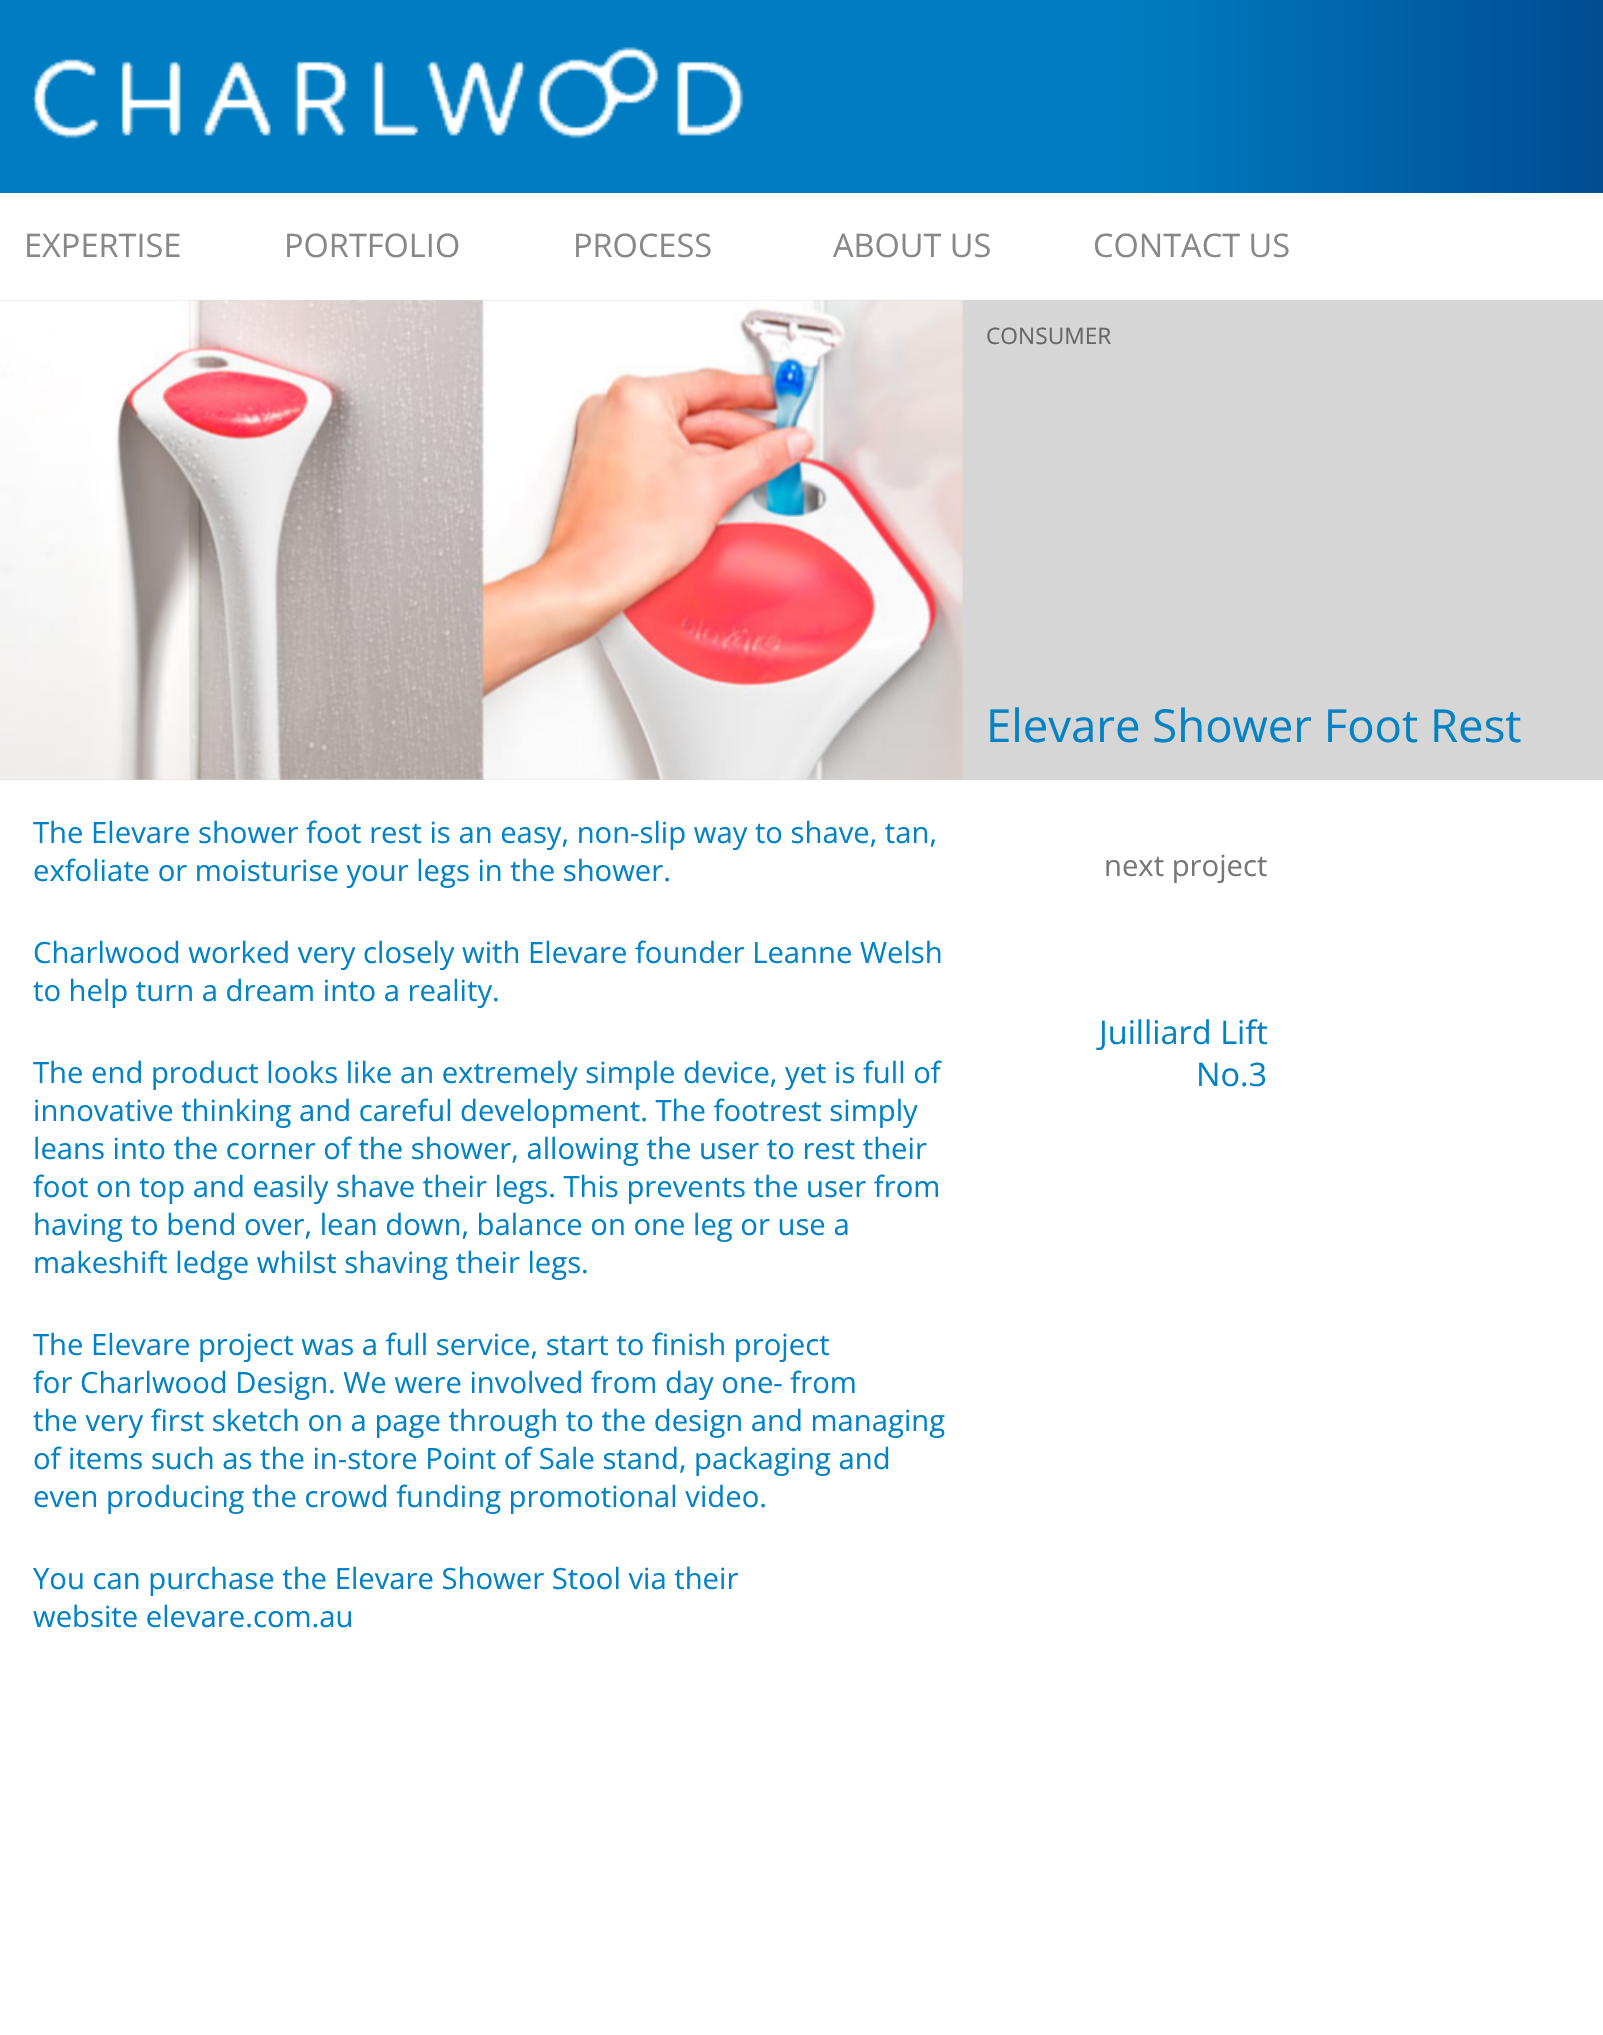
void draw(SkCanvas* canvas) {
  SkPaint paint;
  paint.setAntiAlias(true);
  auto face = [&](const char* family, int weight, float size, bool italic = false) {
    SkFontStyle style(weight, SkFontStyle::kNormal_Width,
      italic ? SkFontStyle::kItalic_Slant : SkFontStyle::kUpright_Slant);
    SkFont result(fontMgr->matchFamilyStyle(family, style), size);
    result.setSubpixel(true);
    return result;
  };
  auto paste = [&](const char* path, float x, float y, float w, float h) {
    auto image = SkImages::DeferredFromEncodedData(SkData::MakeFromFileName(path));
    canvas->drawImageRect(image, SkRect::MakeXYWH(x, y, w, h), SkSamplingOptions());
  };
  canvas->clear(0xffffffff);
  {
    const SkColor colors[] = {0xff007dc2, 0xff007dc2, 0xff004c91};
    const float stops[] = {0, 0.7f, 1};
    const SkPoint ends[] = {{0, 96}, {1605, 96}};
    paint.setShader(SkGradientShader::MakeLinear(ends, colors, stops, 3, SkTileMode::kClamp));
    paint.setAlpha(255);
  }
  canvas->drawRect(SkRect::MakeXYWH(0, 0, 1603, 193), paint);
  paste("img/1.png", 32, 46, 712, 93);
  paint.setShader(nullptr);
  paint.setColor(0xffd6d6d6);
  canvas->drawRect(SkRect::MakeXYWH(0, 300, 1603, 480), paint);
  paste("img/2.png", 0, 300, 963, 480);
  auto f0 = face("Open Sans", 400, 32.5f);
  paint.setColor(0xff888888);
  {
    const struct { const char* s; float x, y; } items[] = {
      {"EXPERTISE", 24, 257},
      {"PORTFOLIO", 284, 257},
      {"PROCESS", 573, 257},
      {"ABOUT US", 833, 257},
      {"CONTACT US", 1093, 257},
    };
    for (auto [s, x, y] : items) {
      canvas->drawString(s, x, y, f0, paint);
    }
  }
  auto f1 = face("Open Sans", 400, 22.75f);
  paint.setColor(0xff666666);
  canvas->drawString("CONSUMER", 986, 344, f1, paint);
  auto f2 = face("Open Sans", 400, 45.5f);
  paint.setColor(0xff0382c5);
  canvas->drawString("Elevare Shower Foot Rest", 986, 742, f2, paint);
  auto f3 = face("Open Sans", 400, 29.25f);
  {
    const struct { const char* s; float x, y; } items[] = {
      {"The Elevare shower foot rest is an easy, non-slip way to shave, tan,", 33, 843},
      {"exfoliate or moisturise your legs in the shower.", 33, 881},
      {"Charlwood worked very closely with Elevare founder Leanne Welsh", 33, 963},
      {"to help turn a dream into a reality.", 33, 1001},
      {"The end product looks like an extremely simple device, yet is full of", 33, 1083},
      {"innovative thinking and careful development. The footrest simply", 33, 1121},
      {"leans into the corner of the shower, allowing the user to rest their", 33, 1159},
      {"foot on top and easily shave their legs. This prevents the user from", 33, 1197},
      {"having to bend over, lean down, balance on one leg or use a", 33, 1235},
      {"makeshift ledge whilst shaving their legs.", 33, 1273},
      {"The Elevare project was a full service, start to finish project", 33, 1355},
      {"for Charlwood Design. We were involved from day one- from", 33, 1393},
      {"the very first sketch on a page through to the design and managing", 33, 1431},
      {"of items such as the in-store Point of Sale stand, packaging and", 33, 1469},
      {"even producing the crowd funding promotional video.", 33, 1507},
      {"You can purchase the Elevare Shower Stool via their", 33, 1589},
      {"website elevare.com.au", 33, 1627},
    };
    for (auto [s, x, y] : items) {
      canvas->drawString(s, x, y, f3, paint);
    }
  }
  paint.setColor(0xff777777);
  canvas->drawString("next project", 1104, 876, f3, paint);
  paint.setColor(0xff0382c5);
  canvas->drawString("Juilliard Lift", 1099, 1044, f0, paint);
  canvas->drawString("No.3", 1196, 1086, f0, paint);
}
